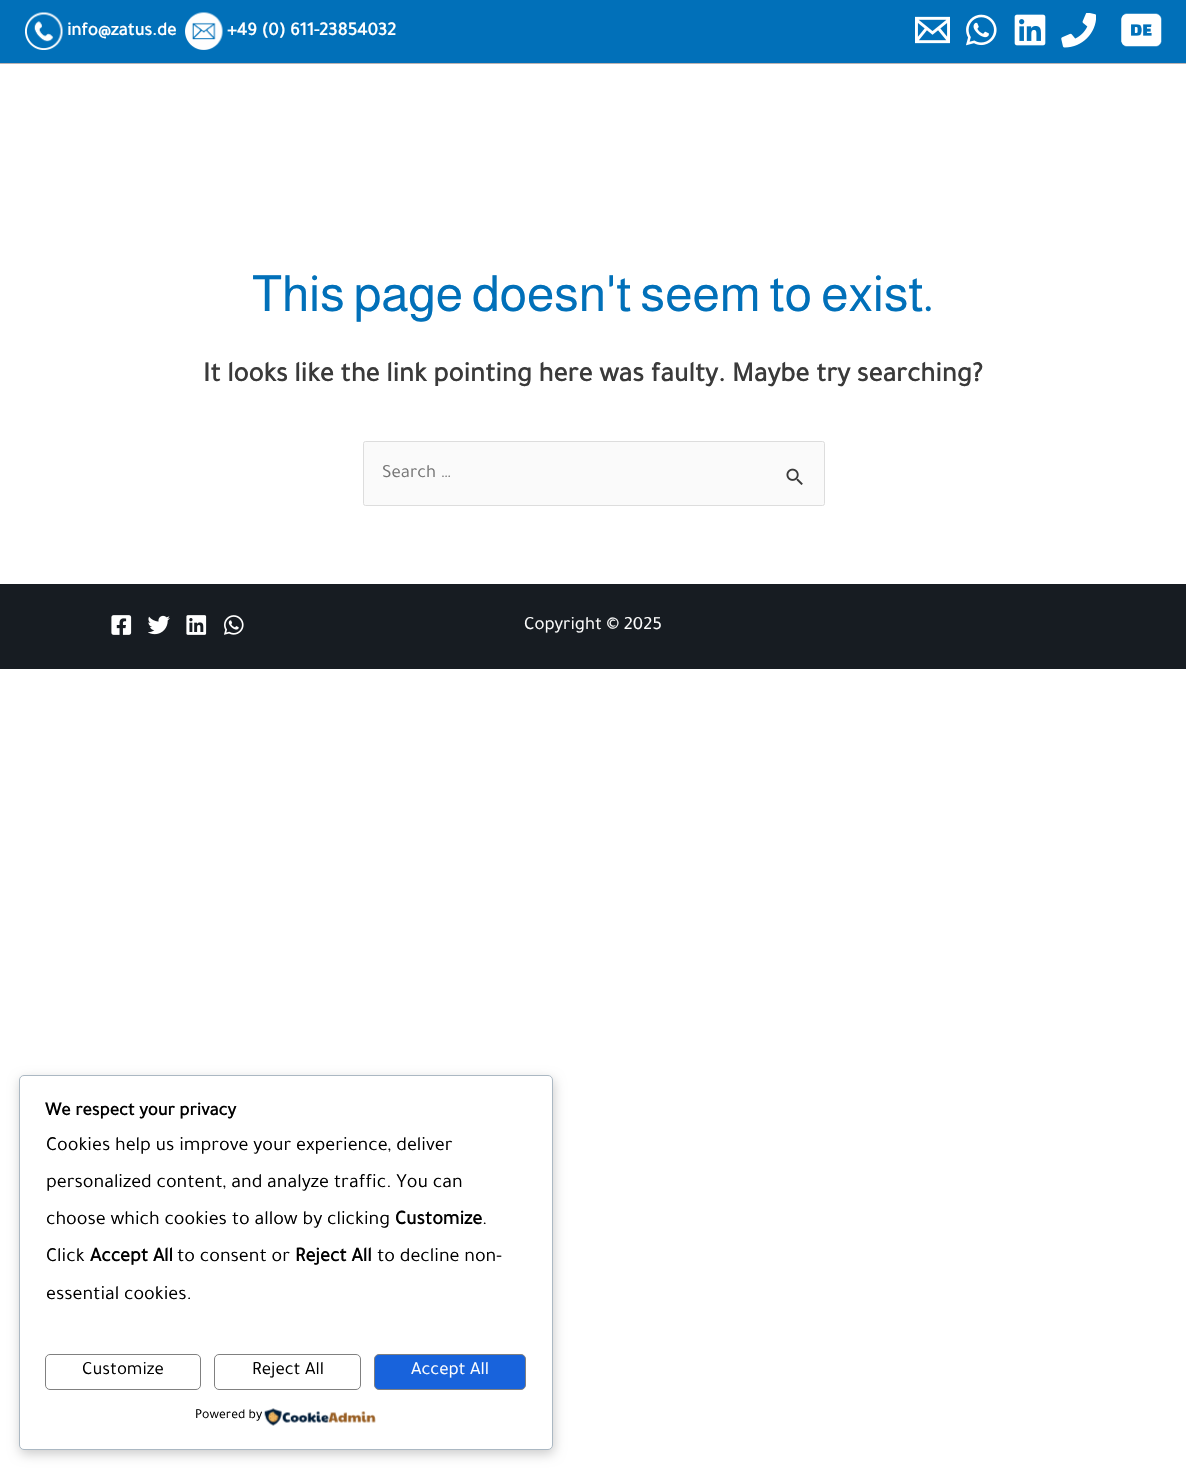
void draw(SkCanvas* canvas) {
  SkPaint paint;
  paint.setAntiAlias(true);
  auto face = [&](const char* family, int weight, float size, bool italic = false) {
    SkFontStyle style(weight, SkFontStyle::kNormal_Width,
      italic ? SkFontStyle::kItalic_Slant : SkFontStyle::kUpright_Slant);
    SkFont result(fontMgr->matchFamilyStyle(family, style), size);
    result.setSubpixel(true);
    return result;
  };
  auto paste = [&](const char* path, float x, float y, float w, float h) {
    auto image = SkImages::DeferredFromEncodedData(SkData::MakeFromFileName(path));
    canvas->drawImageRect(image, SkRect::MakeXYWH(x, y, w, h), SkSamplingOptions());
  };
  canvas->clear(0xffffffff);
  paint.setColor(0xff0170b9);
  canvas->drawRect(SkRect::MakeXYWH(0, 0, 1186, 63), paint);
  paint.setColor(0xffbbb3b3);
  canvas->drawRect(SkRect::MakeXYWH(0, 63, 1186, 1), paint);
  paste("img/1.png", 25, 12, 38, 38);
  paste("img/2.png", 185, 12, 38, 38);
  paste("img/3.png", 915, 16, 35, 28);
  paste("img/4.png", 966, 14, 31, 32);
  paste("img/5.png", 1014, 14, 32, 32);
  paste("img/6.png", 1061, 13, 35, 35);
  paste("img/7.png", 1121, 13, 41, 34);
  paint.setColor(0xfffafafa);
  canvas->drawRoundRect(SkRect::MakeXYWH(363.5f, 441.5f, 461, 64), 2, 2, paint);
  paint.setStroke(true);
  paint.setStrokeWidth(1);
  paint.setColor(0xffdddddd);
  canvas->drawRoundRect(SkRect::MakeXYWH(363.5f, 441.5f, 461, 64), 2, 2, paint);
  paste("img/8.png", 786, 468, 17, 17);
  paint.setStroke(false);
  paint.setColor(0xff171c22);
  canvas->drawRect(SkRect::MakeXYWH(0, 584, 1186, 85), paint);
  paste("img/9.png", 111, 615, 21, 20);
  paste("img/10.png", 148, 615, 22, 20);
  paste("img/11.png", 186, 615, 21, 20);
  paste("img/12.png", 224, 615, 20, 20);
  paint.setColor(0x33000000);
  paint.setMaskFilter(SkMaskFilter::MakeBlur(kNormal_SkBlurStyle, 6));
  canvas->drawRoundRect(SkRect::MakeXYWH(20, 1079, 534, 375), 5, 5, paint);
  paint.setMaskFilter(nullptr);
  paint.setColor(0xffffffff);
  canvas->drawRoundRect(SkRect::MakeXYWH(19.5f, 1075.5f, 533, 374), 4.5f, 4.5f, paint);
  paint.setStroke(true);
  paint.setColor(0xffabb8c3);
  canvas->drawRoundRect(SkRect::MakeXYWH(19.5f, 1075.5f, 533, 374), 4.5f, 4.5f, paint);
  paint.setColor(0xff808080);
  canvas->drawRoundRect(SkRect::MakeXYWH(45.5f, 1354.5f, 155, 35), 4.5f, 4.5f, paint);
  canvas->drawRoundRect(SkRect::MakeXYWH(214.5f, 1354.5f, 146, 35), 4.5f, 4.5f, paint);
  paint.setStroke(false);
  paint.setColor(0xff1863dc);
  canvas->drawRoundRect(SkRect::MakeXYWH(374.5f, 1354.5f, 151, 35), 4.5f, 4.5f, paint);
  paint.setStroke(true);
  paint.setColor(0xff808080);
  canvas->drawRoundRect(SkRect::MakeXYWH(374.5f, 1354.5f, 151, 35), 4.5f, 4.5f, paint);
  paste("img/13.png", 264, 1408, 112, 18);
  auto f0 = face("Tajawal", 700, 18.75f);
  paint.setStroke(false);
  paint.setColor(0xffffffff);
  canvas->drawString("info@zatus.de", 67, 35, f0, paint);
  canvas->drawString("+49 (0) 611-23854032", 227, 35, f0, paint);
  auto f1 = face("Almarai", 400, 50);
  paint.setColor(0xff0170b9);
  canvas->drawString("This page doesn't seem to exist.", 252, 311, f1, paint);
  auto f2 = face("Tajawal", 700, 28.1f);
  paint.setColor(0xff3a3a3a);
  canvas->drawString("It looks like the link pointing here was faulty. Maybe try searching?", 203, 381, f2, paint);
  auto f3 = face("Tajawal", 400, 18.75f);
  paint.setColor(0xff757575);
  canvas->drawString("Search …", 382, 477, f3, paint);
  paint.setColor(0xffffffff);
  canvas->drawString("Copyright © 2025", 524, 629, f3, paint);
  paint.setColor(0xff000000);
  canvas->drawString("We respect your privacy", 45, 1115, f0, paint);
  auto f4 = face("Tajawal", 400, 20);
  {
    const struct { const char* s; float x, y; } items[] = {
      {"Cookies help us improve your experience, deliver", 46, 1150},
      {"personalized content, and analyze traffic. You can", 46, 1187},
      {"choose which cookies to allow by clicking", 46, 1224},
    };
    for (auto [s, x, y] : items) {
      canvas->drawString(s, x, y, f4, paint);
    }
  }
  auto f5 = face("Tajawal", 700, 20);
  canvas->drawString("Customize", 395, 1224, f5, paint);
  canvas->drawString(".", 482, 1224, f4, paint);
  canvas->drawString("Click", 46, 1261, f4, paint);
  canvas->drawString("Accept All", 90, 1261, f5, paint);
  canvas->drawString("to consent or", 177, 1261, f4, paint);
  canvas->drawString("Reject All", 295, 1261, f5, paint);
  canvas->drawString("to decline non-", 377, 1261, f4, paint);
  canvas->drawString("essential cookies.", 46, 1299, f4, paint);
  canvas->drawString("Customize", 82, 1374, f3, paint);
  canvas->drawString("Reject All", 252, 1374, f3, paint);
  paint.setColor(0xffffffff);
  canvas->drawString("Accept All", 411, 1374, f3, paint);
  auto f6 = face("Tajawal", 400, 13.75f);
  paint.setColor(0xff000000);
  canvas->drawString("Powered by", 195, 1418, f6, paint);
}
